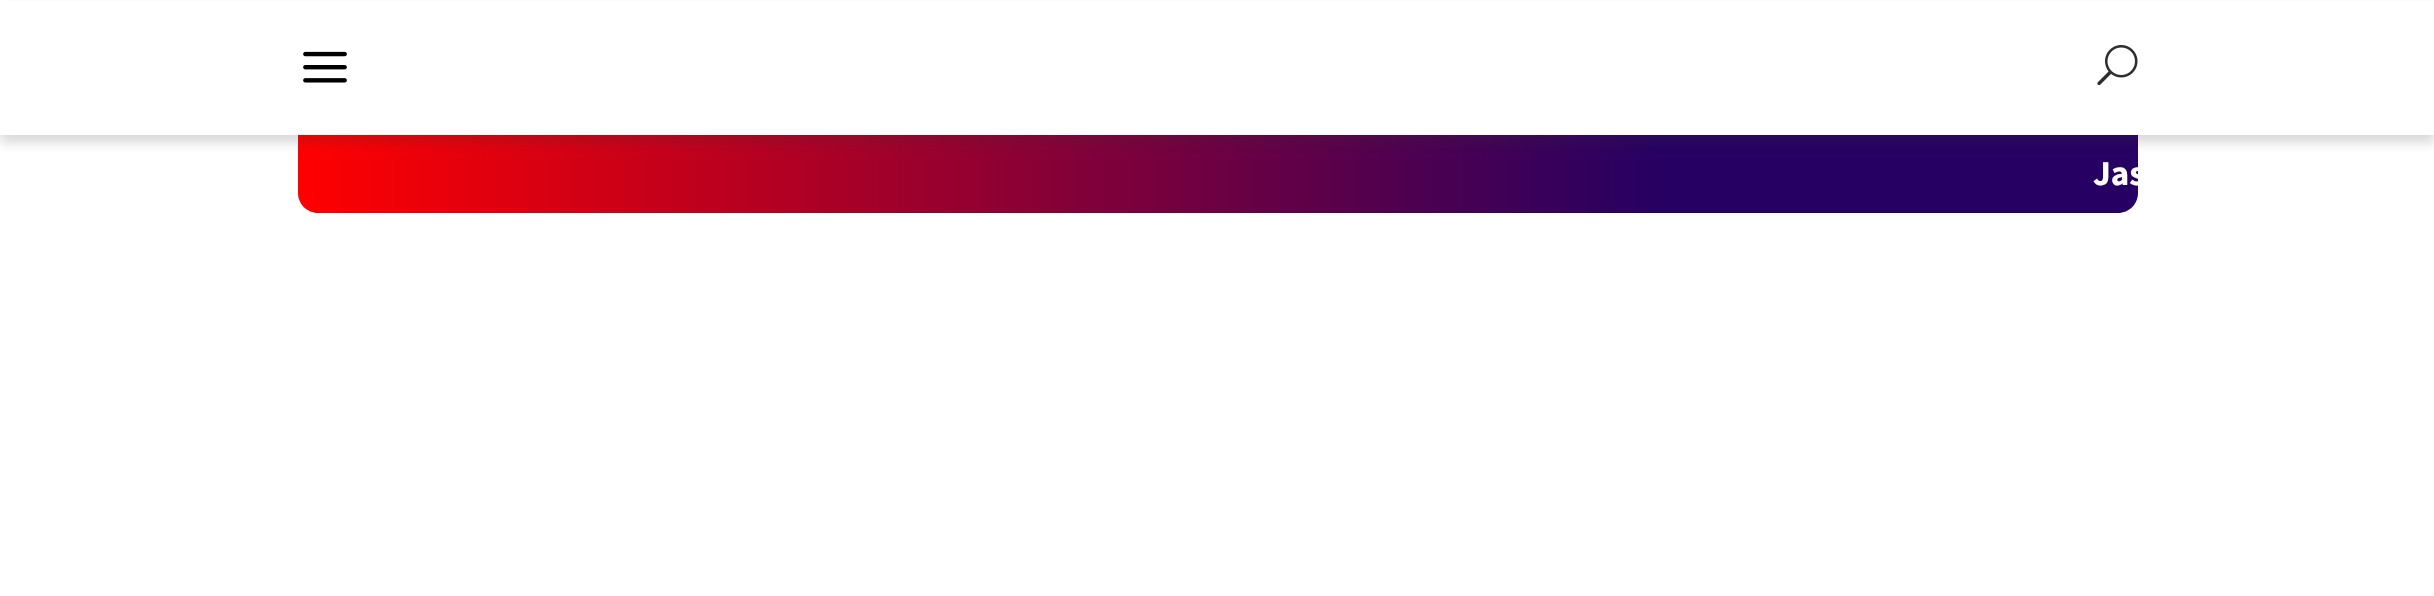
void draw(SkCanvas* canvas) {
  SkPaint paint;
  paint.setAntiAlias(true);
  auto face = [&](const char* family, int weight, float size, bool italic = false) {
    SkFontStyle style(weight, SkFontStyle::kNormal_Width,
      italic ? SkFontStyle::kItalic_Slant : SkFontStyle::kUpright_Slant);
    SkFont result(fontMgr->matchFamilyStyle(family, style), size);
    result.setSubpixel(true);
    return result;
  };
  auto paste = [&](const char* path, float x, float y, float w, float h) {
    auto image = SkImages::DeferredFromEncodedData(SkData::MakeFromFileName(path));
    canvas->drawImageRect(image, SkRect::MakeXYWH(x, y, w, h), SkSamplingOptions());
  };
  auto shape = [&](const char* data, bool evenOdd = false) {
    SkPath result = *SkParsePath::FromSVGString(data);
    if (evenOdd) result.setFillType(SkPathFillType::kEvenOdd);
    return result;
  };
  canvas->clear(0xffffffff);
  {
    const SkColor colors[] = {0xffff0000, 0xff260062};
    const float stops[] = {0, 0.74f};
    const SkPoint ends[] = {{298, 174}, {2138, 174}};
    paint.setShader(SkGradientShader::MakeLinear(ends, colors, stops, 2, SkTileMode::kClamp));
    paint.setAlpha(255);
  }
  canvas->drawPath(shape("M298 135H2138V193C2138 204 2129 213 2118 213H318C307 213 298 204 298 193Z"), paint);
  paint.setShader(nullptr);
  paint.setColor(0x2e343434);
  paint.setMaskFilter(SkMaskFilter::MakeBlur(kNormal_SkBlurStyle, 5));
  canvas->drawRect(SkRect::MakeXYWH(0, 8, 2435, 135), paint);
  paint.setMaskFilter(nullptr);
  paint.setColor(0xffffffff);
  canvas->drawRect(SkRect::MakeXYWH(0, 1, 2434, 134), paint);
  paste("img/1.png", 303, 51, 44, 32);
  paste("img/2.png", 2097, 45, 41, 41);
  canvas->save();
  canvas->clipPath(shape("M298 135H2138V193C2138 204 2129 213 2118 213H318C307 213 298 204 298 193Z"), true);
  auto f0 = face("Source Sans Pro", 700, 35);
  canvas->drawString("Jas", 2093, 185, f0, paint);
  canvas->restore();
}
